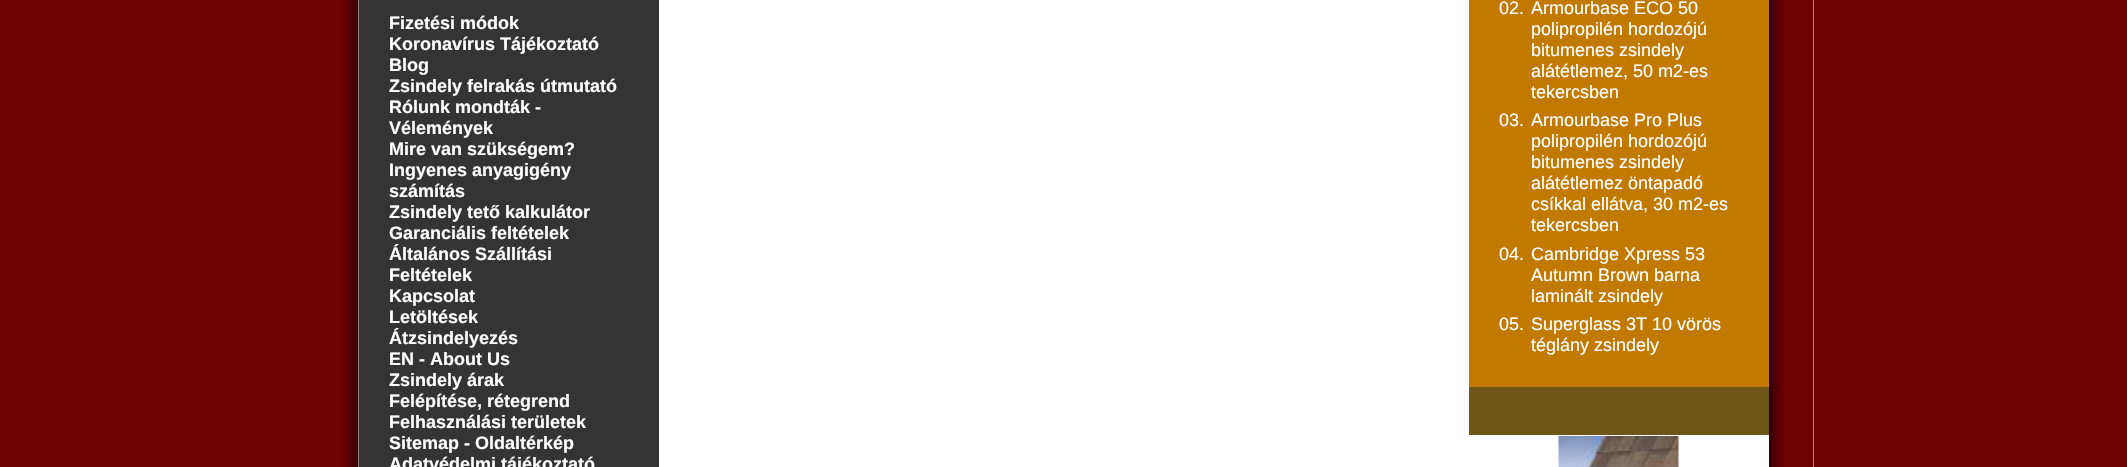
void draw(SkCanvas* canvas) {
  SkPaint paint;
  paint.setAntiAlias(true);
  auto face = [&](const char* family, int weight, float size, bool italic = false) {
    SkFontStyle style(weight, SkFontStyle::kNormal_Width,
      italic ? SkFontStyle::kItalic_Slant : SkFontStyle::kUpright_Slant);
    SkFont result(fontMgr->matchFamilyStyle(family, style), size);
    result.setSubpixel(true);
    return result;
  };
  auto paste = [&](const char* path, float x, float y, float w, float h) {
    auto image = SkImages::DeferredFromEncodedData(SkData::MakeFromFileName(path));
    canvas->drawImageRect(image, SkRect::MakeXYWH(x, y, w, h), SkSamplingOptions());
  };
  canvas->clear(0xff6f0005);
  paint.setColor(0xffffffff);
  canvas->drawRect(SkRect::MakeXYWH(358, 0, 1456, 467), paint);
  paste("img/1.png", 314, 0, 45, 467);
  paint.setColor(0xff343434);
  canvas->drawRect(SkRect::MakeXYWH(359, 0, 300, 467), paint);
  paint.setColor(0xffc17900);
  canvas->drawRect(SkRect::MakeXYWH(1469, 0, 300, 387), paint);
  paste("img/2.png", 1558, 436, 121, 31);
  paste("img/3.png", 1769, 0, 45, 467);
  paint.setColor(0xff6e5518);
  canvas->drawRect(SkRect::MakeXYWH(1469, 387, 300, 48), paint);
  auto f0 = face("Liberation Sans", 700, 18);
  paint.setColor(0xffffffff);
  {
    const struct { const char* s; float x, y; } items[] = {
      {"Fizetési módok", 389, 29},
      {"Koronavírus Tájékoztató", 389, 50},
      {"Blog", 389, 71},
      {"Zsindely felrakás útmutató", 389, 92},
      {"Rólunk mondták -", 389, 113},
      {"Vélemények", 389, 134},
      {"Mire van szükségem?", 389, 155},
      {"Ingyenes anyagigény", 389, 176},
      {"számítás", 389, 197},
      {"Zsindely tető kalkulátor", 389, 218},
      {"Garanciális feltételek", 389, 239},
      {"Általános Szállítási", 389, 260},
      {"Feltételek", 389, 281},
      {"Kapcsolat", 389, 302},
      {"Letöltések", 389, 323},
      {"Átzsindelyezés", 389, 344},
      {"EN - About Us", 389, 365},
      {"Zsindely árak", 389, 386},
      {"Felépítése, rétegrend", 389, 407},
      {"Felhasználási területek", 389, 428},
      {"Sitemap - Oldaltérkép", 389, 449},
      {"Adatvédelmi tájékoztató", 389, 470},
    };
    for (auto [s, x, y] : items) {
      canvas->drawString(s, x, y, f0, paint);
    }
  }
  auto f1 = face("Liberation Sans", 400, 18);
  {
    const struct { const char* s; float x, y; } items[] = {
      {"02.", 1499, 14},
      {"Armourbase ECO 50", 1531, 14},
      {"polipropilén hordozójú", 1531, 35},
      {"bitumenes zsindely", 1531, 56},
      {"alátétlemez, 50 m2-es", 1531, 77},
      {"tekercsben", 1531, 98},
      {"03.", 1499, 126},
      {"Armourbase Pro Plus", 1531, 126},
      {"polipropilén hordozójú", 1531, 147},
      {"bitumenes zsindely", 1531, 168},
      {"alátétlemez öntapadó", 1531, 189},
      {"csíkkal ellátva, 30 m2-es", 1531, 210},
      {"tekercsben", 1531, 231},
      {"04.", 1499, 260},
      {"Cambridge Xpress 53", 1531, 260},
      {"Autumn Brown barna", 1531, 281},
      {"laminált zsindely", 1531, 302},
      {"05.", 1499, 330},
      {"Superglass 3T 10 vörös", 1531, 330},
      {"téglány zsindely", 1531, 351},
    };
    for (auto [s, x, y] : items) {
      canvas->drawString(s, x, y, f1, paint);
    }
  }
}
